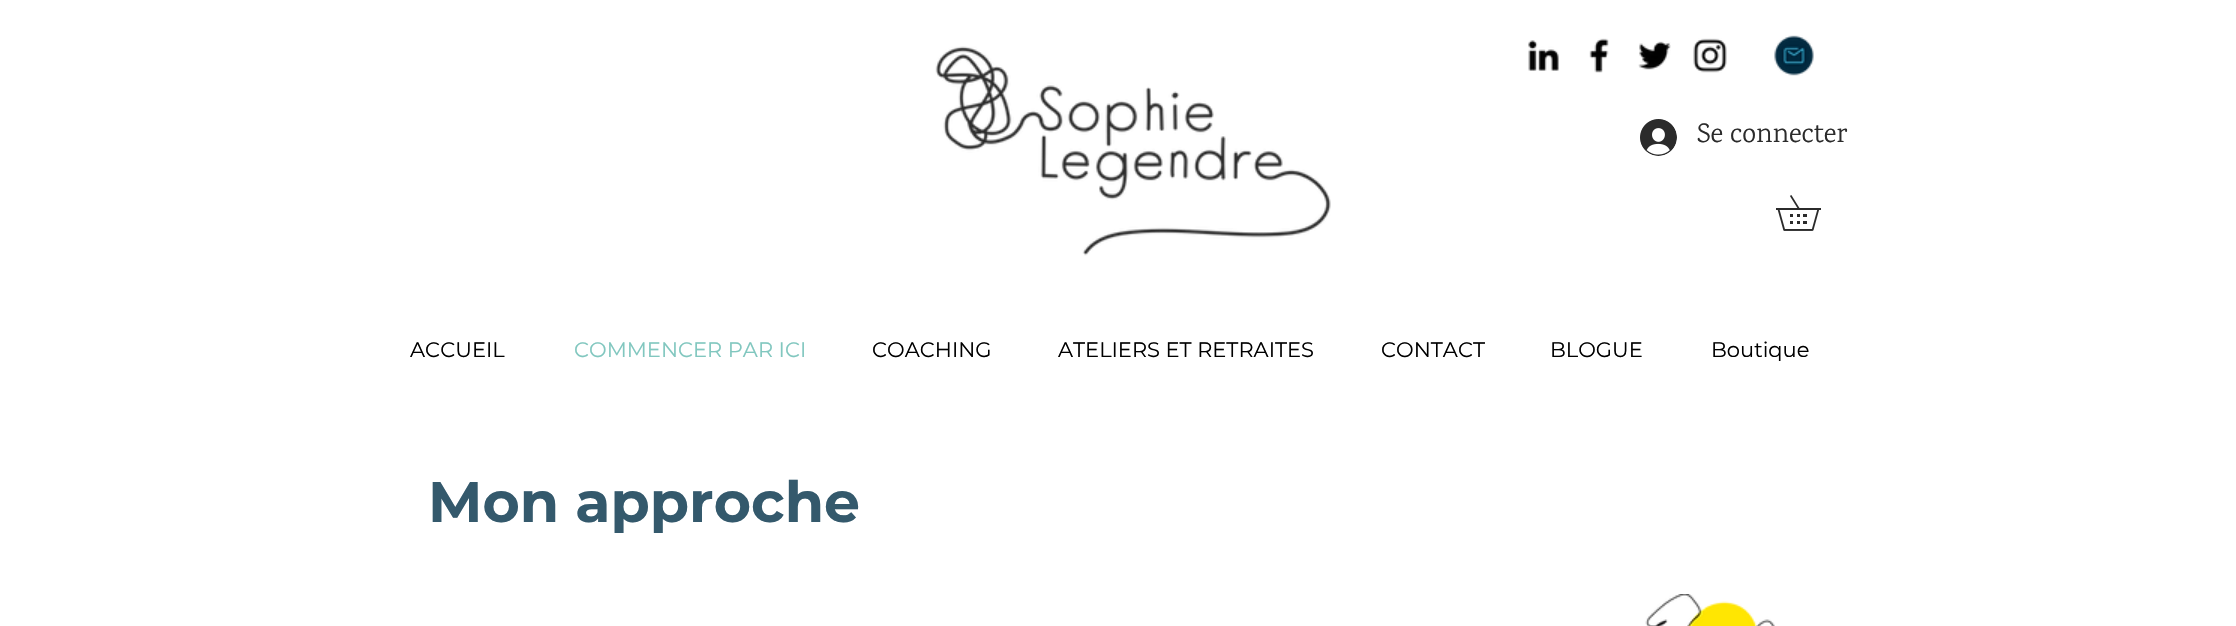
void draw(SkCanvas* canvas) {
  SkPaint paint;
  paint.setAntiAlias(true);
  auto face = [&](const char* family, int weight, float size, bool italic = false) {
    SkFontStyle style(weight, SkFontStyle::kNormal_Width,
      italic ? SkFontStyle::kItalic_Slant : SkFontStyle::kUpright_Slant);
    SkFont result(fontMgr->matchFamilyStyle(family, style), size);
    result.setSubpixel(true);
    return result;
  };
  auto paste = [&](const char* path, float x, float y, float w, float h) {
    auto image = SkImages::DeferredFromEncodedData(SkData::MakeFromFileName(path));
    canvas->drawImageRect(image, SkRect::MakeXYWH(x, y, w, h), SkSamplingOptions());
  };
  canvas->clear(0xffffffff);
  paste("img/1.png", 935, 46, 396, 210);
  paste("img/2.png", 1528, 40, 31, 31);
  paste("img/3.png", 1589, 38, 20, 35);
  paste("img/4.png", 1638, 41, 33, 29);
  paste("img/5.png", 1693, 38, 34, 35);
  paste("img/6.png", 1774, 35, 40, 41);
  paste("img/7.png", 1640, 119, 37, 37);
  paste("img/8.png", 1776, 195, 45, 36);
  paste("img/9.png", 1645, 594, 130, 32);
  auto f0 = face("Karma", 400, 27);
  paint.setColor(0xff2b2b2b);
  canvas->drawString("Se connecter", 1697, 142, f0, paint);
  auto f1 = face("Montserrat", 400, 21);
  paint.setColor(0xff000000);
  canvas->drawString("ACCUEIL", 410, 357, f1, paint);
  paint.setColor(0xff81c7bf);
  canvas->drawString("COMMENCER PAR ICI", 574, 357, f1, paint);
  paint.setColor(0xff000000);
  {
    const struct { const char* s; float x, y; } items[] = {
      {"COACHING", 872, 357},
      {"ATELIERS ET RETRAITES", 1058, 357},
      {"CONTACT", 1381, 357},
      {"BLOGUE", 1550, 357},
      {"Boutique", 1711, 357},
    };
    for (auto [s, x, y] : items) {
      canvas->drawString(s, x, y, f1, paint);
    }
  }
  auto f2 = face("Montserrat", 700, 57);
  paint.setColor(0xff34596c);
  canvas->drawString("Mon approche", 428, 522, f2, paint);
}
